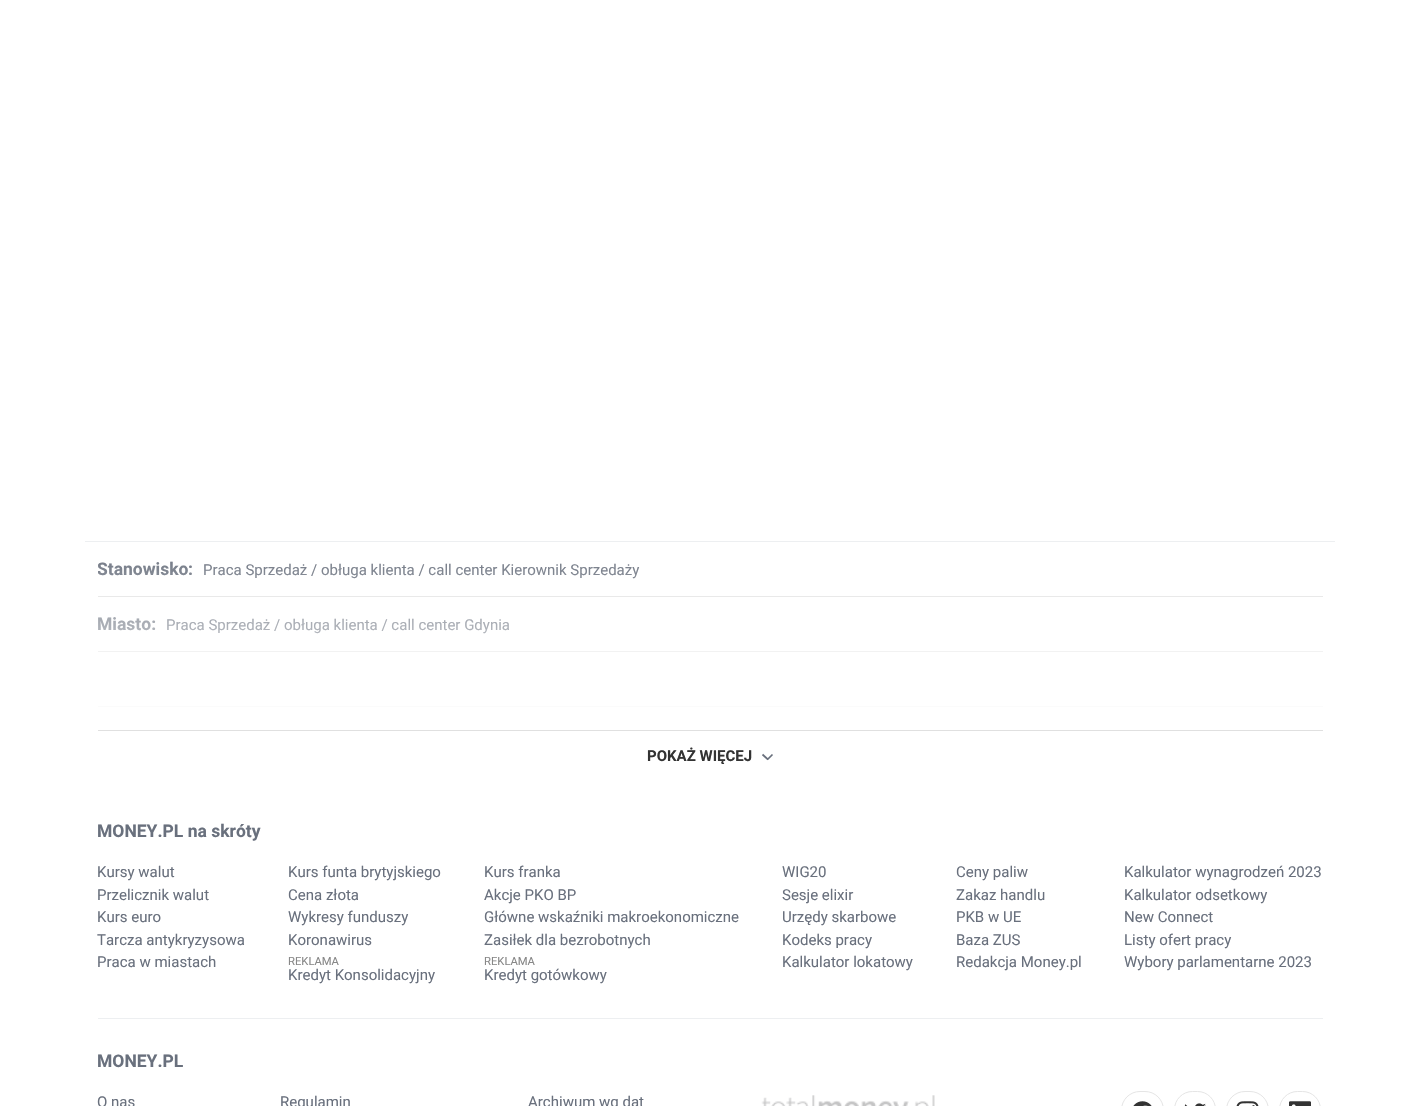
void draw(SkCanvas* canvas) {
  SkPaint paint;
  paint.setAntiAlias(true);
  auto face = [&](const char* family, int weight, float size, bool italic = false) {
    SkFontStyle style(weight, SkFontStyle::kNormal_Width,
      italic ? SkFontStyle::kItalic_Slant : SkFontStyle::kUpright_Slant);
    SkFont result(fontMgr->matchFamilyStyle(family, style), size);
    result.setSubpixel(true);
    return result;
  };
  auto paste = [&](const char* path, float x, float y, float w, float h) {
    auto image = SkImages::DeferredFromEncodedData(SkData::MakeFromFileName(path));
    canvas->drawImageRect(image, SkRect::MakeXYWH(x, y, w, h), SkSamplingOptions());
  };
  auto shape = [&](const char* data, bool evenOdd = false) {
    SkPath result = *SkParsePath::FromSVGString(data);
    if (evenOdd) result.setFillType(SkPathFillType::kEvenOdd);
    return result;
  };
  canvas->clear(0xffffffff);
  {
    const struct { float x, y, w, h; SkColor color; } items[] = {
      {85, 541, 1250, 1, 0xffedeff1},
      {98, 730, 1225, 1, 0xffe0e0e0},
      {98, 596, 1225, 1, 0xffe0e0e0},
      {98, 651, 1225, 1, 0xffe0e0e0},
      {98, 706, 1225, 1, 0xffe0e0e0},
    };
    for (auto [x, y, w, h, color] : items) {
      paint.setColor(color);
      canvas->drawRect(SkRect::MakeXYWH(x, y, w, h), paint);
    }
  }
  paint.setStroke(true);
  paint.setStrokeWidth(1.7f);
  paint.setColor(0xff69707d);
  canvas->drawPath(shape("M762.5 754.5L768 759.5M772.5 754.5L767.5 759.5"), paint);
  paint.setStroke(false);
  paint.setColor(0xffedeff1);
  canvas->drawRect(SkRect::MakeXYWH(98, 1018, 1225, 1), paint);
  paste("img/1.png", 761, 1095, 174, 11);
  paint.setStroke(true);
  paint.setStrokeWidth(1);
  paint.setColor(0xffe5e5e5);
  canvas->drawRoundRect(SkRect::MakeXYWH(1121.5f, 1091.5f, 42, 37), 21, 21, paint);
  paste("img/2.png", 1133, 1101, 19, 5);
  canvas->drawRoundRect(SkRect::MakeXYWH(1174.5f, 1091.5f, 41, 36), 20.5f, 20.5f, paint);
  paste("img/3.png", 1184, 1103, 22, 3);
  canvas->drawRoundRect(SkRect::MakeXYWH(1226.5f, 1091.5f, 42, 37), 21, 21, paint);
  paste("img/4.png", 1236, 1101, 23, 5);
  canvas->drawRoundRect(SkRect::MakeXYWH(1279.5f, 1091.5f, 41, 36), 20.5f, 20.5f, paint);
  paste("img/5.png", 1289, 1101, 22, 5);
  canvas->save();
  canvas->clipRect(SkRect::MakeXYWH(98, 543, 1225, 187));
  auto f0 = face("Roboto", 700, 17.5f);
  paint.setStroke(false);
  paint.setColor(0xff69707d);
  canvas->drawString("Stanowisko", 97, 575, f0, paint);
  canvas->restore();
  canvas->drawString(":", 188, 575, f0, paint);
  auto f1 = face("Roboto", 400, 15);
  canvas->drawString("Praca Sprzedaż / obługa klienta / call center Kierownik Sprzedaży", 203, 575, f1, paint);
  canvas->drawString("Miasto:", 97, 630, f0, paint);
  canvas->drawString("Praca Sprzedaż / obługa klienta / call center Gdynia", 166, 630, f1, paint);
  {
    const SkColor colors[] = {0xffffffff, 0x00ffffff};
    const float stops[] = {0, 1};
    const SkPoint ends[] = {{710, 730}, {710, 543}};
    paint.setShader(SkGradientShader::MakeLinear(ends, colors, stops, 2, SkTileMode::kClamp));
    paint.setAlpha(255);
  }
  canvas->drawRect(SkRect::MakeXYWH(98, 562, 1225, 145), paint);
  auto f2 = face("Roboto", 700, 15);
  paint.setShader(nullptr);
  paint.setColor(0xff333333);
  canvas->drawString("POKAŻ WIĘCEJ", 647, 761, f2, paint);
  paint.setColor(0xff69707d);
  canvas->drawString("MONEY.PL na skróty", 97, 837, f0, paint);
  {
    const struct { const char* s; float x, y; } items[] = {
      {"Kursy walut", 97, 877},
      {"Przelicznik walut", 97, 900},
      {"Kurs euro", 97, 922},
      {"Tarcza antykryzysowa", 97, 945},
      {"Praca w miastach", 97, 967},
      {"Kurs funta brytyjskiego", 288, 877},
      {"Cena złota", 288, 900},
      {"Wykresy funduszy", 288, 922},
      {"Koronawirus", 288, 945},
    };
    for (auto [s, x, y] : items) {
      canvas->drawString(s, x, y, f1, paint);
    }
  }
  auto f3 = face("Roboto", 400, 11.25f);
  paint.setColor(0xff888888);
  canvas->drawString("REKLAMA", 288, 965, f3, paint);
  paint.setColor(0xff69707d);
  {
    const struct { const char* s; float x, y; } items[] = {
      {"Kredyt Konsolidacyjny", 288, 980},
      {"Kurs franka", 484, 877},
      {"Akcje PKO BP", 484, 900},
      {"Główne wskaźniki makroekonomiczne", 484, 922},
      {"Zasiłek dla bezrobotnych", 484, 945},
    };
    for (auto [s, x, y] : items) {
      canvas->drawString(s, x, y, f1, paint);
    }
  }
  paint.setColor(0xff888888);
  canvas->drawString("REKLAMA", 484, 965, f3, paint);
  paint.setColor(0xff69707d);
  {
    const struct { const char* s; float x, y; } items[] = {
      {"Kredyt gotówkowy", 484, 980},
      {"WIG20", 782, 877},
      {"Sesje elixir", 782, 900},
      {"Urzędy skarbowe", 782, 922},
      {"Kodeks pracy", 782, 945},
      {"Kalkulator lokatowy", 782, 967},
      {"Ceny paliw", 956, 877},
      {"Zakaz handlu", 956, 900},
      {"PKB w UE", 956, 922},
      {"Baza ZUS", 956, 945},
      {"Redakcja Money.pl", 956, 967},
      {"Kalkulator wynagrodzeń 2023", 1124, 877},
      {"Kalkulator odsetkowy", 1124, 900},
      {"New Connect", 1124, 922},
      {"Listy ofert pracy", 1124, 945},
      {"Wybory parlamentarne 2023", 1124, 967},
    };
    for (auto [s, x, y] : items) {
      canvas->drawString(s, x, y, f1, paint);
    }
  }
  canvas->drawString("MONEY.PL", 97, 1067, f0, paint);
  {
    const struct { const char* s; float x, y; } items[] = {
      {"O nas", 97, 1107},
      {"Regulamin", 280, 1107},
      {"Archiwum wg dat", 528, 1107},
    };
    for (auto [s, x, y] : items) {
      canvas->drawString(s, x, y, f1, paint);
    }
  }
}
